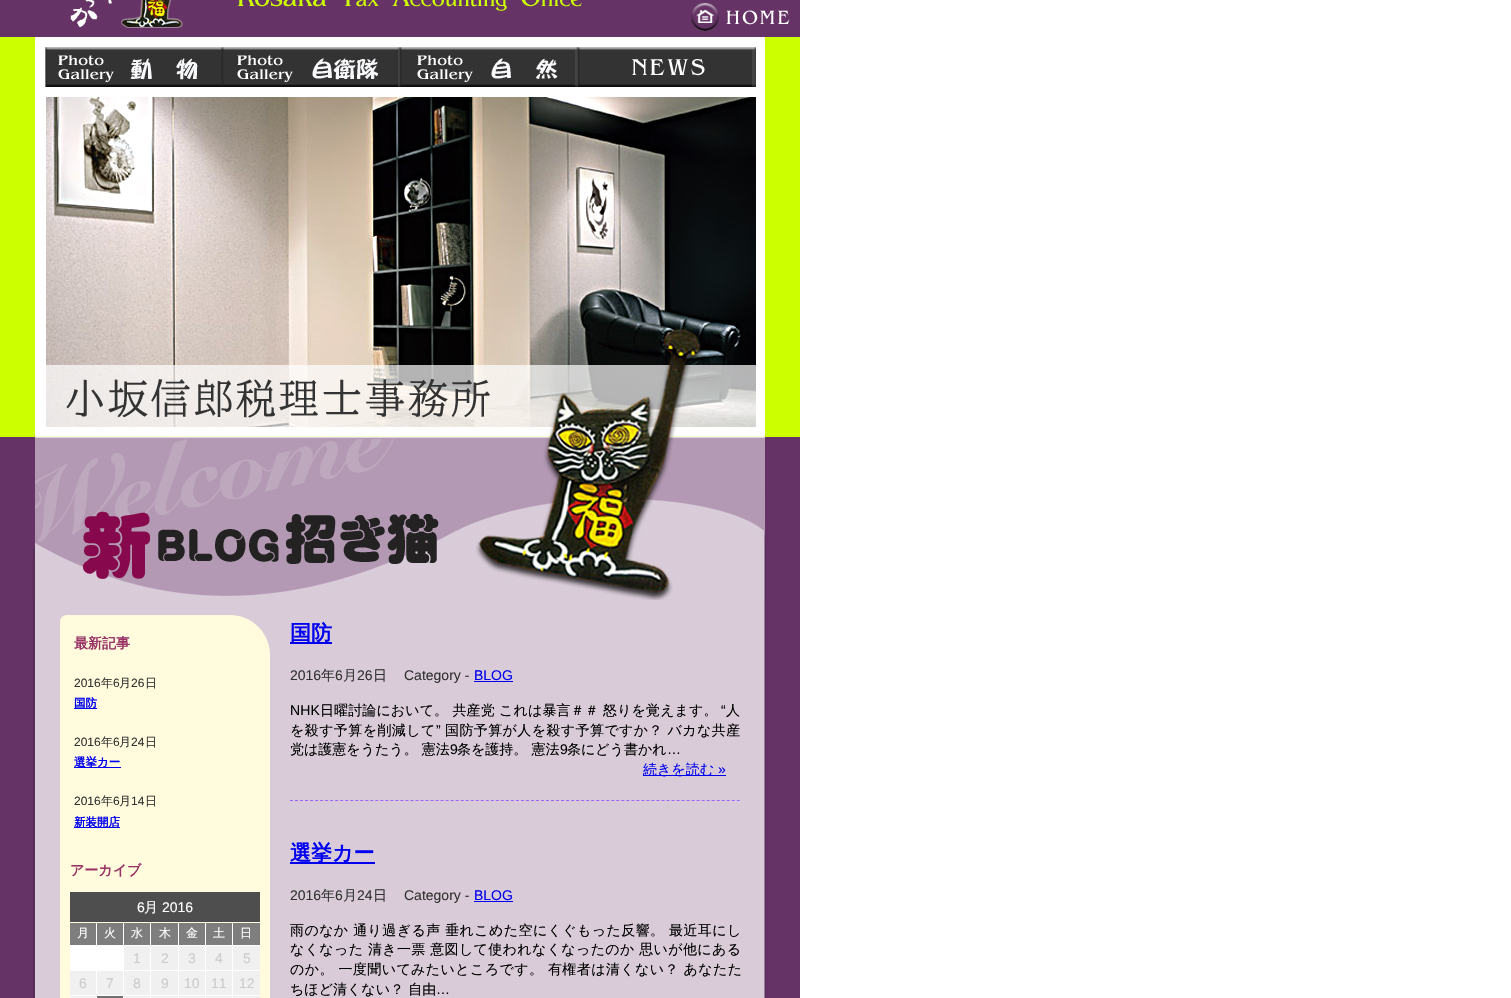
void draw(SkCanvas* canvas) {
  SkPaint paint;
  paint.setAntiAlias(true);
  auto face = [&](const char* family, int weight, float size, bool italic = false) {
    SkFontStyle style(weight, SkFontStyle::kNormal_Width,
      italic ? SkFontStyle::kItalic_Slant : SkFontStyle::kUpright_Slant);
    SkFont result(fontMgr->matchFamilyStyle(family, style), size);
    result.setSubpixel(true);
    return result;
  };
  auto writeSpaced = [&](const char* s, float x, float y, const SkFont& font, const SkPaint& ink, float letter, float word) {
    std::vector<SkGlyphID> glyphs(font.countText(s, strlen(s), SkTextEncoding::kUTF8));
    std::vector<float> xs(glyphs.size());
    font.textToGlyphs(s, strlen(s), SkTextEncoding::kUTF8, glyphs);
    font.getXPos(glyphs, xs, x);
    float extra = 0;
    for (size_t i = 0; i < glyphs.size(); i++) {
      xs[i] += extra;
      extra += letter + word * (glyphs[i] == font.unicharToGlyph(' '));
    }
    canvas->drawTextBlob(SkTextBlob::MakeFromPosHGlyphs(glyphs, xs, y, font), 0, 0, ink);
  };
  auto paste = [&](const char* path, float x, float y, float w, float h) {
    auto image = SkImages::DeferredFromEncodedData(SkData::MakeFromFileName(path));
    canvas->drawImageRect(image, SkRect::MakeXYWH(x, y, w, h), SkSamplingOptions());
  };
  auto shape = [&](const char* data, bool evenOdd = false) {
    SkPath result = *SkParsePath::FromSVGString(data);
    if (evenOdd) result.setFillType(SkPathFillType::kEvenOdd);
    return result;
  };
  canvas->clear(0xffffffff);
  paste("img/1.png", 0, 0, 680, 36);
  paste("img/2.png", 680, 0, 41, 36);
  paste("img/3.png", 721, 0, 79, 36);
  paste("img/4.png", 0, 494, 800, 504);
  paste("img/5.png", 0, 36, 800, 10);
  paste("img/6.png", 0, 46, 45, 381);
  paste("img/7.png", 45, 46, 177, 41);
  paste("img/8.png", 222, 46, 178, 41);
  paste("img/9.png", 400, 46, 177, 41);
  paste("img/10.png", 577, 46, 179, 41);
  paste("img/11.png", 756, 46, 44, 381);
  paste("img/12.png", 45, 87, 711, 340);
  paste("img/13.png", 0, 427, 800, 67);
  paste("img/14.png", 32, 494, 735, 106);
  paint.setColor(0xfffffbdc);
  canvas->drawPath(shape("M67 615H230C252 615 270 633 270 655V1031C270 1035 267 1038 263 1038H67C63 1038 60 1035 60 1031V622C60 618 63 615 67 615Z"), paint);
  {
    const struct { float x, y, w, h; SkColor color; } items[] = {
      {74, 708, 23, 1, 0xff0000ee},
      {74, 767, 47, 1, 0xff0000ee},
      {74, 827, 46, 1, 0xff0000ee},
      {70, 892, 190, 30, 0xff4e4e4e},
      {70, 923, 26, 22, 0xff7e7e7e},
      {96, 923, 1, 23, 0xffffffff},
      {70, 945, 27, 1, 0xffffffff},
      {97, 923, 26, 22, 0xff7e7e7e},
      {123, 923, 1, 23, 0xffffffff},
      {97, 945, 27, 1, 0xffffffff},
      {124, 923, 26, 22, 0xff7e7e7e},
      {150, 923, 1, 73, 0xffffffff},
      {124, 945, 27, 1, 0xffffffff},
      {151, 923, 27, 22, 0xff7e7e7e},
      {178, 923, 1, 73, 0xffffffff},
      {151, 945, 28, 1, 0xffffffff},
      {179, 923, 26, 22, 0xff7e7e7e},
      {205, 923, 1, 73, 0xffffffff},
      {179, 945, 27, 1, 0xffffffff},
      {206, 923, 26, 22, 0xff7e7e7e},
      {232, 923, 1, 73, 0xffffffff},
      {206, 945, 54, 1, 0xffffffff},
      {233, 923, 27, 22, 0xff7e7e7e},
      {70, 946, 54, 25, 0xffffffff},
      {124, 946, 26, 24, 0xfff0f0f0},
      {124, 970, 136, 1, 0xffffffff},
      {151, 946, 27, 24, 0xfff0f0f0},
      {179, 946, 26, 24, 0xfff0f0f0},
      {206, 946, 26, 24, 0xfff0f0f0},
      {233, 946, 27, 24, 0xfff0f0f0},
      {70, 971, 26, 24, 0xfff0f0f0},
      {96, 971, 1, 25, 0xffffffff},
      {70, 995, 27, 1, 0xffffffff},
      {97, 971, 26, 24, 0xfff0f0f0},
      {123, 971, 1, 27, 0xffffffff},
      {97, 995, 163, 1, 0xffffffff},
      {124, 971, 26, 24, 0xfff0f0f0},
      {151, 971, 27, 24, 0xfff0f0f0},
      {179, 971, 26, 24, 0xfff0f0f0},
      {206, 971, 26, 24, 0xfff0f0f0},
      {233, 971, 27, 24, 0xfff0f0f0},
      {70, 996, 27, 2, 0xfff0f0f0},
      {96, 996, 1, 2, 0xffffffff},
      {97, 996, 26, 2, 0xff707070},
      {124, 996, 136, 2, 0xfff0f0f0},
      {150, 996, 1, 2, 0xffffffff},
      {178, 996, 1, 2, 0xffffffff},
      {205, 996, 1, 2, 0xffffffff},
      {232, 996, 1, 2, 0xffffffff},
      {290, 642, 42, 2, 0xff0000ee},
      {474, 681, 39, 1, 0xff0000ee},
      {643, 775, 83, 1, 0xff0000ee},
    };
    for (auto [x, y, w, h, color] : items) {
      paint.setColor(color);
      canvas->drawRect(SkRect::MakeXYWH(x, y, w, h), paint);
    }
  }
  paint.setStroke(true);
  paint.setStrokeWidth(1);
  paint.setColor(0xff9966ff);
  paint.setPathEffect(SkDashPathEffect::Make({{3, 2.02f}}, 0));
  canvas->drawPath(shape("M290 800.5H740"), paint);
  paint.setPathEffect(nullptr);
  paint.setStroke(false);
  paint.setColor(0xff0000ee);
  canvas->drawRect(SkRect::MakeXYWH(290, 862, 85, 2), paint);
  canvas->drawRect(SkRect::MakeXYWH(474, 901, 39, 1), paint);
  auto f0 = face("WenQuanYi Zen Hei", 700, 14);
  paint.setColor(0xff993366);
  canvas->drawString("最新記事", 74, 648, f0, paint);
  auto f1 = face("Liberation Sans", 400, 12);
  paint.setColor(0xff333333);
  canvas->drawString("2016", 74, 687, f1, paint);
  auto f2 = face("WenQuanYi Zen Hei", 500, 12);
  canvas->drawString("年", 101, 687, f2, paint);
  canvas->drawString("6", 113, 687, f1, paint);
  canvas->drawString("月", 119, 687, f2, paint);
  canvas->drawString("26", 131, 687, f1, paint);
  canvas->drawString("日", 145, 687, f2, paint);
  auto f3 = face("WenQuanYi Zen Hei", 700, 11.5f);
  paint.setColor(0xff0000ee);
  canvas->drawString("国防", 74, 707, f3, paint);
  paint.setColor(0xff333333);
  canvas->drawString("2016", 74, 746, f1, paint);
  canvas->drawString("年", 101, 746, f2, paint);
  canvas->drawString("6", 113, 746, f1, paint);
  canvas->drawString("月", 119, 746, f2, paint);
  canvas->drawString("24", 131, 746, f1, paint);
  canvas->drawString("日", 145, 746, f2, paint);
  paint.setColor(0xff0000ee);
  canvas->drawString("選挙カー", 74, 766, f3, paint);
  paint.setColor(0xff333333);
  canvas->drawString("2016", 74, 805, f1, paint);
  canvas->drawString("年", 101, 805, f2, paint);
  canvas->drawString("6", 113, 805, f1, paint);
  canvas->drawString("月", 119, 805, f2, paint);
  canvas->drawString("14", 131, 805, f1, paint);
  canvas->drawString("日", 145, 805, f2, paint);
  paint.setColor(0xff0000ee);
  canvas->drawString("新装開店", 74, 826, f3, paint);
  paint.setColor(0xff993366);
  canvas->drawString("アーカイブ", 70, 875, f0, paint);
  auto f4 = face("Liberation Sans", 400, 14);
  paint.setColor(0xffffffff);
  canvas->drawString("6", 137, 912, f4, paint);
  auto f5 = face("WenQuanYi Zen Hei", 500, 14);
  canvas->drawString("月", 144, 912, f5, paint);
  canvas->drawString("2016", 162, 912, f4, paint);
  {
    const struct { const char* s; float x, y; } items[] = {
      {"月", 77, 937},
      {"火", 104, 937},
      {"水", 131, 937},
      {"木", 159, 937},
      {"金", 186, 937},
      {"土", 213, 937},
      {"日", 240, 937},
    };
    for (auto [s, x, y] : items) {
      canvas->drawString(s, x, y, f2, paint);
    }
  }
  paint.setColor(0xffcccccc);
  {
    const struct { const char* s; float x, y; } items[] = {
      {"1", 133, 963},
      {"2", 161, 963},
      {"3", 188, 963},
      {"4", 215, 963},
      {"5", 243, 963},
      {"6", 79, 988},
      {"7", 106, 988},
      {"8", 133, 988},
      {"9", 161, 988},
      {"10", 184, 988},
      {"11", 211, 988},
      {"12", 239, 988},
    };
    for (auto [s, x, y] : items) {
      canvas->drawString(s, x, y, f4, paint);
    }
  }
  auto f6 = face("WenQuanYi Zen Hei", 700, 21);
  paint.setColor(0xff0000ee);
  canvas->drawString("国防", 290, 640, f6, paint);
  paint.setColor(0xff333333);
  canvas->drawString("2016", 290, 680, f4, paint);
  canvas->drawString("年", 321, 680, f5, paint);
  canvas->drawString("6", 335, 680, f4, paint);
  canvas->drawString("月", 343, 680, f5, paint);
  canvas->drawString("26", 357, 680, f4, paint);
  canvas->drawString("日", 373, 680, f5, paint);
  canvas->drawString("Category -", 404, 680, f4, paint);
  paint.setColor(0xff0000ee);
  canvas->drawString("BLOG", 474, 680, f4, paint);
  paint.setColor(0xff000000);
  writeSpaced("NHK", 290, 715, f4, paint, 0.1f, 0);
  writeSpaced("日曜討論において。 共産党 これは暴言＃＃ 怒りを覚えます。", 320, 715, f5, paint, 0.1f, 0);
  writeSpaced("“", 721, 715, f4, paint, 0.1f, 0);
  writeSpaced("人", 726, 715, f5, paint, 0.1f, 0);
  writeSpaced("を殺す予算を削減して", 290, 735, f5, paint, 0.4f, 0);
  writeSpaced("”", 436, 735, f4, paint, 0.4f, 0);
  writeSpaced("国防予算が人を殺す予算ですか？ バカな共産", 445, 735, f5, paint, 0.4f, 0);
  canvas->drawString("党は護憲をうたう。 憲法", 290, 754, f5, paint);
  canvas->drawString("9", 450, 754, f4, paint);
  canvas->drawString("条を護持。 憲法", 457, 754, f5, paint);
  canvas->drawString("9", 560, 754, f4, paint);
  canvas->drawString("条にどう書かれ", 567, 754, f5, paint);
  canvas->drawString("…", 667, 754, f4, paint);
  paint.setColor(0xff0000ee);
  canvas->drawString("続きを読む", 643, 774, f5, paint);
  canvas->drawString("»", 718, 774, f4, paint);
  canvas->drawString("選挙カー", 290, 860, f6, paint);
  paint.setColor(0xff333333);
  canvas->drawString("2016", 290, 900, f4, paint);
  canvas->drawString("年", 321, 900, f5, paint);
  canvas->drawString("6", 335, 900, f4, paint);
  canvas->drawString("月", 343, 900, f5, paint);
  canvas->drawString("24", 357, 900, f4, paint);
  canvas->drawString("日", 373, 900, f5, paint);
  canvas->drawString("Category -", 404, 900, f4, paint);
  paint.setColor(0xff0000ee);
  canvas->drawString("BLOG", 474, 900, f4, paint);
  paint.setColor(0xff000000);
  writeSpaced("雨のなか 通り過ぎる声 垂れこめた空にくぐもった反響。 最近耳にし", 290, 935, f5, paint, 0.4f, 0);
  writeSpaced("なくなった 清き一票 意図して使われなくなったのか 思いが他にある", 290, 954, f5, paint, 0.35f, 0);
  writeSpaced("のか。 一度聞いてみたいところです。 有権者は清くない？ あなたた", 290, 974, f5, paint, 0.4f, 0);
  canvas->drawString("ちほど清くない？ 自由", 290, 994, f5, paint);
  canvas->drawString("…", 436, 994, f4, paint);
}
